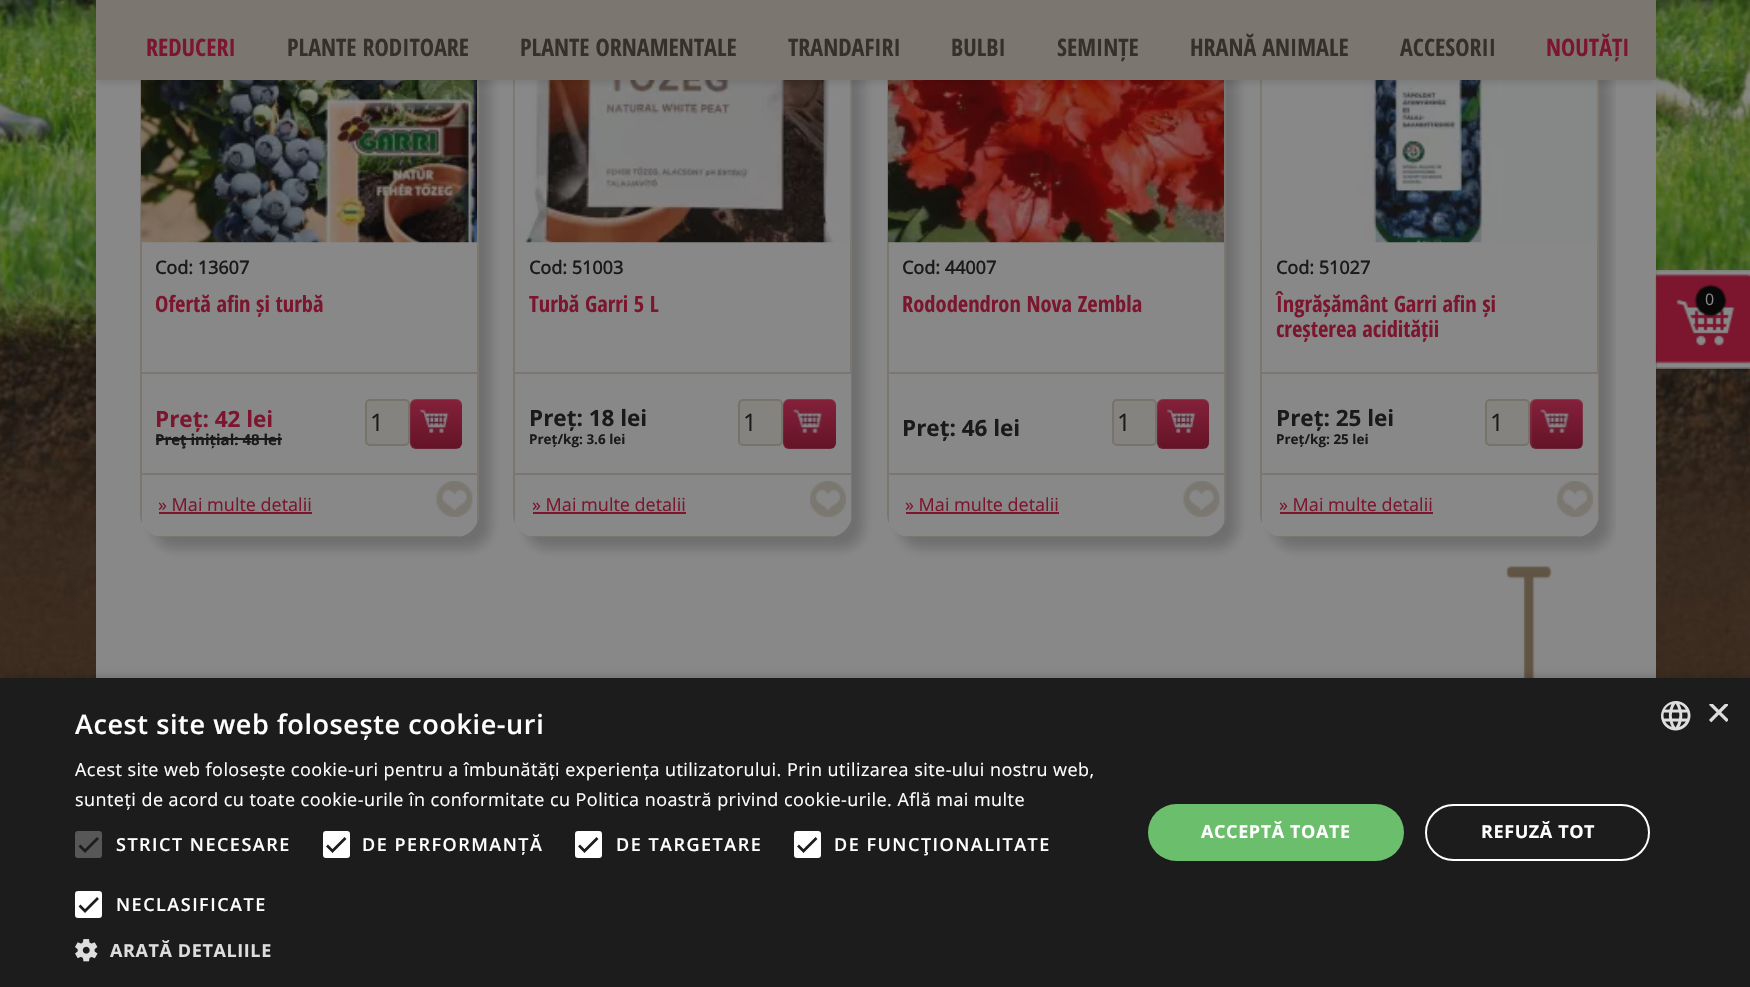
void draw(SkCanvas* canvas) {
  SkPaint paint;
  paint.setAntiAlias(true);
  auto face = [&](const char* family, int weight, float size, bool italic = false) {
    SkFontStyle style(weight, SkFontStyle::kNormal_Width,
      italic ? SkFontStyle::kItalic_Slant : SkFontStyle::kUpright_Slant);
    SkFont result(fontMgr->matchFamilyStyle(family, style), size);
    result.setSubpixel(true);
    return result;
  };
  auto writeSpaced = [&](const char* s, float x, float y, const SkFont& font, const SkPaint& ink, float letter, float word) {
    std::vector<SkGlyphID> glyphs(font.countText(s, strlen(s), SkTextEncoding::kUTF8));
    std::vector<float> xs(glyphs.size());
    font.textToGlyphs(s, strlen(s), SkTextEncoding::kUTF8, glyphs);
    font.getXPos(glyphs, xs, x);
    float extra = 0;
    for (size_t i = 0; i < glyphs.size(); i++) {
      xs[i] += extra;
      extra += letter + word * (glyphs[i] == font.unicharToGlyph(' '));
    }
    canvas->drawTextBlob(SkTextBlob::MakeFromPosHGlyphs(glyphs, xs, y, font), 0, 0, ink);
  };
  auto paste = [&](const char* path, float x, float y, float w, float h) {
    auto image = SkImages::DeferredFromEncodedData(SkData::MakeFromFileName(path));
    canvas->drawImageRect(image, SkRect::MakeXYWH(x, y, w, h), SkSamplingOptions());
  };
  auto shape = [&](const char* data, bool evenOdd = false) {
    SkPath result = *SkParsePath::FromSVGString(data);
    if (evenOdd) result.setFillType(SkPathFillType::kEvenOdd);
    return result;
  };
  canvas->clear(0xffffffff);
  paste("img/1.png", 0, 0, 1750, 678);
  paint.setColor(0xff888888);
  canvas->drawRect(SkRect::MakeXYWH(96, 80, 1560, 598), paint);
  paint.setColor(0x33090909);
  paint.setMaskFilter(SkMaskFilter::MakeBlur(kNormal_SkBlurStyle, 6));
  canvas->drawRoundRect(SkRect::MakeXYWH(152, -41, 339, 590), 23, 23, paint);
  paint.setMaskFilter(nullptr);
  paint.setColor(0xff888888);
  canvas->drawPath(shape("M140-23H479V514C479 526.5 468.5 537 456 537H163C150.5 537 140 526.5 140 514Z"), paint);
  paint.setStroke(true);
  paint.setStrokeWidth(2);
  paint.setColor(0xff7b7670);
  canvas->drawRect(SkRect::MakeXYWH(141, -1, 337, 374), paint);
  paste("img/2.png", 141, 80, 336, 163);
  paint.setStroke(false);
  paint.setColor(0x33090909);
  paint.setMaskFilter(SkMaskFilter::MakeBlur(kNormal_SkBlurStyle, 6));
  canvas->drawRoundRect(SkRect::MakeXYWH(525, -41, 339, 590), 23, 23, paint);
  paint.setMaskFilter(nullptr);
  paint.setColor(0xff888888);
  canvas->drawPath(shape("M513-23H852V514C852 526.5 841.5 537 829 537H536C523.5 537 513 526.5 513 514Z"), paint);
  paint.setStroke(true);
  paint.setColor(0xff7b7670);
  canvas->drawRect(SkRect::MakeXYWH(514, -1, 337, 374), paint);
  paste("img/5.png", 514, 80, 337, 163);
  paint.setStroke(false);
  paint.setColor(0x33090909);
  paint.setMaskFilter(SkMaskFilter::MakeBlur(kNormal_SkBlurStyle, 6));
  canvas->drawRoundRect(SkRect::MakeXYWH(899, -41, 339, 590), 23, 23, paint);
  paint.setMaskFilter(nullptr);
  paint.setColor(0xff888888);
  canvas->drawPath(shape("M887-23H1226V514C1226 526.5 1215.5 537 1203 537H910C897.5 537 887 526.5 887 514Z"), paint);
  paint.setStroke(true);
  paint.setColor(0xff7b7670);
  canvas->drawRect(SkRect::MakeXYWH(888, -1, 337, 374), paint);
  paste("img/8.png", 888, 80, 336, 163);
  paste("img/11.png", 1505, 566, 47, 112);
  canvas->save();
  canvas->clipRect(SkRect::MakeXYWH(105, 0, 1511, 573));
  paint.setStroke(false);
  paint.setColor(0x33090909);
  paint.setMaskFilter(SkMaskFilter::MakeBlur(kNormal_SkBlurStyle, 6));
  canvas->drawRoundRect(SkRect::MakeXYWH(1272, -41, 339, 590), 23, 23, paint);
  paint.setMaskFilter(nullptr);
  canvas->restore();
  paint.setColor(0xff888888);
  canvas->drawPath(shape("M1260-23H1599V514C1599 526.5 1588.5 537 1576 537H1283C1270.5 537 1260 526.5 1260 514Z"), paint);
  paint.setStroke(true);
  paint.setColor(0xff7b7670);
  canvas->drawRect(SkRect::MakeXYWH(1261, -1, 337, 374), paint);
  paste("img/9.png", 1261, 80, 337, 163);
  paint.setStroke(false);
  paint.setColor(0x1c090909);
  paint.setMaskFilter(SkMaskFilter::MakeBlur(kNormal_SkBlurStyle, 4));
  canvas->drawRect(SkRect::MakeXYWH(96, 3, 1560, 80), paint);
  paint.setMaskFilter(nullptr);
  {
    const struct { float x, y, w, h; SkColor color; } items[] = {
      {96, 0, 1560, 80, 0xff7b7670},
      {477, 374, 2, 100, 0xff7b7670},
      {140, 473, 339, 2, 0xff7b7670},
      {140, 374, 2, 100, 0xff7b7670},
      {156, 438, 126, 2, 0xff1a1a1a},
    };
    for (auto [x, y, w, h, color] : items) {
      paint.setColor(color);
      canvas->drawRect(SkRect::MakeXYWH(x, y, w, h), paint);
    }
  }
  paint.setColor(0xff848380);
  canvas->drawRoundRect(SkRect::MakeXYWH(366, 400, 43, 45), 4, 4, paint);
  paint.setStroke(true);
  paint.setColor(0xff77726a);
  canvas->drawRoundRect(SkRect::MakeXYWH(366, 400, 43, 45), 4, 4, paint);
  paint.setStroke(false);
  {
    const SkColor colors[] = {0xff84213a, 0xff641327};
    const float stops[] = {0, 1};
    const SkPoint ends[] = {{436, 399}, {436, 449}};
    paint.setShader(SkGradientShader::MakeLinear(ends, colors, stops, 2, SkTileMode::kClamp));
    paint.setAlpha(255);
  }
  canvas->drawRoundRect(SkRect::MakeXYWH(410, 399, 52, 50), 6, 6, paint);
  paint.setShader(nullptr);
  paint.setColor(0x33888888);
  canvas->drawPath(shape("M416 400H456C459 400 462 403 462 406C462 398 456 399 449 399H423C416 399 410 398 410 406C410 403 412 400 416 400Z"), paint);
  paint.setColor(0x1f888888);
  canvas->drawPath(shape("M416 399C413 399 410 402 410 405V443C410 446 413 449 416 449H456C457 449 459 449 460 448H417C414 448 411 446 411 442V405C411 402 414 399 417 399Z"), paint);
  paste("img/3.png", 420, 408, 29, 26);
  canvas->save();
  canvas->clipPath(shape("M140-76H479V514C479 526.5 468.5 537 456 537H163C150.5 537 140 526.5 140 514Z"), true);
  {
    const struct { float x, y, w, h; SkColor color; } items[] = {
      {477, 474, 2, 50, 0xff7b7670},
      {156, 536, 307, 1, 0xff7b7670},
      {140, 474, 2, 50, 0xff7b7670},
    };
    for (auto [x, y, w, h, color] : items) {
      paint.setColor(color);
      canvas->drawRect(SkRect::MakeXYWH(x, y, w, h), paint);
    }
  }
  canvas->restore();
  paint.setColor(0xff7b162e);
  canvas->drawRect(SkRect::MakeXYWH(159, 512, 153, 2), paint);
  paste("img/4.png", 436, 481, 37, 36);
  {
    const struct { float x, y, w, h; SkColor color; } items[] = {
      {851, 374, 1, 100, 0xff7b7670},
      {513, 473, 339, 2, 0xff7b7670},
      {513, 374, 2, 100, 0xff7b7670},
    };
    for (auto [x, y, w, h, color] : items) {
      paint.setColor(color);
      canvas->drawRect(SkRect::MakeXYWH(x, y, w, h), paint);
    }
  }
  paint.setColor(0xff848380);
  canvas->drawRoundRect(SkRect::MakeXYWH(739, 400, 43, 45), 4, 4, paint);
  paint.setStroke(true);
  paint.setColor(0xff77726a);
  canvas->drawRoundRect(SkRect::MakeXYWH(739, 400, 43, 45), 4, 4, paint);
  paint.setStroke(false);
  {
    const SkColor colors[] = {0xff84213a, 0xff641327};
    const float stops[] = {0, 1};
    const SkPoint ends[] = {{809, 399}, {809, 449}};
    paint.setShader(SkGradientShader::MakeLinear(ends, colors, stops, 2, SkTileMode::kClamp));
    paint.setAlpha(255);
  }
  canvas->drawRoundRect(SkRect::MakeXYWH(783, 399, 53, 50), 6, 6, paint);
  paint.setShader(nullptr);
  paint.setColor(0x33888888);
  canvas->drawPath(shape("M789 400H830C833 400 836 403 836 406C836 398 829 399 823 399H796C790 399 783 398 783 406C783 403 786 400 789 400Z"), paint);
  paint.setColor(0x1f888888);
  canvas->drawPath(shape("M789 399C786 399 783 402 783 405V443C783 446 786 449 789 449H830C832 449 833 448 834 447C833 448 832 448 831 448H790C787 448 784 446 784 442V405C784 402 787 399 790 399Z"), paint);
  paste("img/6.png", 793, 408, 30, 26);
  canvas->save();
  canvas->clipPath(shape("M513-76H852V514C852 526.5 841.5 537 829 537H536C523.5 537 513 526.5 513 514Z"), true);
  {
    const struct { float x, y, w, h; SkColor color; } items[] = {
      {851, 474, 1, 47, 0xff7b7670},
      {529, 536, 307, 1, 0xff7b7670},
      {513, 474, 2, 50, 0xff7b7670},
    };
    for (auto [x, y, w, h, color] : items) {
      paint.setColor(color);
      canvas->drawRect(SkRect::MakeXYWH(x, y, w, h), paint);
    }
  }
  canvas->restore();
  paint.setColor(0xff7b162e);
  canvas->drawRect(SkRect::MakeXYWH(533, 512, 153, 2), paint);
  paste("img/7.png", 810, 481, 36, 36);
  {
    const struct { float x, y, w, h; SkColor color; } items[] = {
      {1224, 374, 2, 100, 0xff7b7670},
      {887, 473, 339, 2, 0xff7b7670},
      {887, 374, 2, 100, 0xff7b7670},
    };
    for (auto [x, y, w, h, color] : items) {
      paint.setColor(color);
      canvas->drawRect(SkRect::MakeXYWH(x, y, w, h), paint);
    }
  }
  paint.setColor(0xff848380);
  canvas->drawRoundRect(SkRect::MakeXYWH(1113, 400, 43, 45), 4, 4, paint);
  paint.setStroke(true);
  paint.setColor(0xff77726a);
  canvas->drawRoundRect(SkRect::MakeXYWH(1113, 400, 43, 45), 4, 4, paint);
  paint.setStroke(false);
  {
    const SkColor colors[] = {0xff84213a, 0xff641327};
    const float stops[] = {0, 1};
    const SkPoint ends[] = {{1183, 399}, {1183, 449}};
    paint.setShader(SkGradientShader::MakeLinear(ends, colors, stops, 2, SkTileMode::kClamp));
    paint.setAlpha(255);
  }
  canvas->drawRoundRect(SkRect::MakeXYWH(1157, 399, 52, 50), 6, 6, paint);
  paint.setShader(nullptr);
  paint.setColor(0x33888888);
  canvas->drawPath(shape("M1162 400H1203C1206 400 1209 403 1209 406V405C1209 402 1206 399 1203 399H1163C1161 399 1159 400 1158 402C1159 401 1161 400 1162 400Z"), paint);
  paint.setColor(0x1f888888);
  canvas->drawPath(shape("M1163 399C1160 399 1157 402 1157 405V443C1157 446 1160 449 1163 449H1203C1205 449 1206 448 1207 447L1204 448H1164C1161 448 1158 446 1158 442V405C1158 402 1161 399 1164 399Z"), paint);
  paste("img/3.png", 1167, 408, 29, 26);
  canvas->save();
  canvas->clipPath(shape("M887-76H1226V514C1226 526.5 1215.5 537 1203 537H910C897.5 537 887 526.5 887 514Z"), true);
  {
    const struct { float x, y, w, h; SkColor color; } items[] = {
      {1224, 474, 2, 50, 0xff7b7670},
      {903, 536, 307, 1, 0xff7b7670},
      {887, 474, 2, 50, 0xff7b7670},
    };
    for (auto [x, y, w, h, color] : items) {
      paint.setColor(color);
      canvas->drawRect(SkRect::MakeXYWH(x, y, w, h), paint);
    }
  }
  canvas->restore();
  paint.setColor(0xff7b162e);
  canvas->drawRect(SkRect::MakeXYWH(906, 512, 153, 2), paint);
  paste("img/4.png", 1183, 481, 37, 36);
  {
    const struct { float x, y, w, h; SkColor color; } items[] = {
      {1598, 374, 1, 100, 0xff7b7670},
      {1260, 473, 339, 2, 0xff7b7670},
      {1260, 374, 2, 100, 0xff7b7670},
    };
    for (auto [x, y, w, h, color] : items) {
      paint.setColor(color);
      canvas->drawRect(SkRect::MakeXYWH(x, y, w, h), paint);
    }
  }
  paint.setColor(0xff848380);
  canvas->drawRoundRect(SkRect::MakeXYWH(1486, 400, 43, 45), 4, 4, paint);
  paint.setStroke(true);
  paint.setColor(0xff77726a);
  canvas->drawRoundRect(SkRect::MakeXYWH(1486, 400, 43, 45), 4, 4, paint);
  paint.setStroke(false);
  {
    const SkColor colors[] = {0xff84213a, 0xff641327};
    const float stops[] = {0, 1};
    const SkPoint ends[] = {{1556, 399}, {1556, 449}};
    paint.setShader(SkGradientShader::MakeLinear(ends, colors, stops, 2, SkTileMode::kClamp));
    paint.setAlpha(255);
  }
  canvas->drawRoundRect(SkRect::MakeXYWH(1530, 399, 53, 50), 6, 6, paint);
  paint.setShader(nullptr);
  paint.setColor(0x33888888);
  canvas->drawPath(shape("M1536 400H1576C1580 400 1582 403 1582 406V444C1582 445 1582 446 1581 447C1584 445 1583 440 1583 437V424C1583 395 1586 399 1556 399H1543C1537 399 1530 398 1530 406C1530 403 1533 400 1536 400Z"), paint);
  paint.setColor(0x1f888888);
  canvas->drawPath(shape("M1536 399C1533 399 1530 402 1530 405V443C1530 446 1533 449 1536 449H1577C1579 449 1580 448 1581 447C1580 448 1579 448 1578 448H1538C1534 448 1532 446 1532 442V405C1532 402 1534 399 1538 399Z"), paint);
  paste("img/6.png", 1540, 408, 30, 26);
  canvas->save();
  canvas->clipPath(shape("M1260-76H1599V514C1599 526.5 1588.5 537 1576 537H1283C1270.5 537 1260 526.5 1260 514Z"), true);
  {
    const struct { float x, y, w, h; SkColor color; } items[] = {
      {1598, 474, 1, 47, 0xff7b7670},
      {1276, 536, 307, 1, 0xff7b7670},
      {1260, 474, 2, 50, 0xff7b7670},
    };
    for (auto [x, y, w, h, color] : items) {
      paint.setColor(color);
      canvas->drawRect(SkRect::MakeXYWH(x, y, w, h), paint);
    }
  }
  canvas->restore();
  paint.setColor(0xff7b162e);
  canvas->drawRect(SkRect::MakeXYWH(1280, 512, 153, 2), paint);
  paste("img/7.png", 1557, 481, 36, 36);
  paste("img/10.png", 1655, 270, 95, 99);
  paint.setColor(0x59000000);
  paint.setMaskFilter(SkMaskFilter::MakeBlur(kNormal_SkBlurStyle, 6));
  canvas->drawRect(SkRect::MakeXYWH(2, 681, 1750, 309), paint);
  paint.setMaskFilter(nullptr);
  paint.setColor(0xff1c1c1c);
  canvas->drawRect(SkRect::MakeXYWH(0, 678, 1750, 309), paint);
  paint.setColor(0xff575757);
  canvas->drawRoundRect(SkRect::MakeXYWH(75, 831, 27, 27), 3, 3, paint);
  paint.setStroke(true);
  paint.setStrokeWidth(2.7f);
  paint.setColor(0xff1c1c1c);
  canvas->drawPath(shape("M79.5 845.5L85 851L98 838"), paint);
  paint.setStroke(false);
  paint.setColor(0xffffffff);
  canvas->drawRoundRect(SkRect::MakeXYWH(324.5f, 832.5f, 24, 24), 1.5f, 1.5f, paint);
  paint.setStroke(true);
  paint.setStrokeWidth(3);
  canvas->drawRoundRect(SkRect::MakeXYWH(324.5f, 832.5f, 24, 24), 1.5f, 1.5f, paint);
  paint.setStrokeWidth(2.7f);
  paint.setColor(0xff1c1c1c);
  canvas->drawPath(shape("M327 845.5L332.5 851L345.5 838"), paint);
  paint.setStroke(false);
  paint.setColor(0xffffffff);
  canvas->drawRoundRect(SkRect::MakeXYWH(576.5f, 832.5f, 24, 24), 1.5f, 1.5f, paint);
  paint.setStroke(true);
  paint.setStrokeWidth(3);
  canvas->drawRoundRect(SkRect::MakeXYWH(576.5f, 832.5f, 24, 24), 1.5f, 1.5f, paint);
  paint.setStrokeWidth(2.7f);
  paint.setColor(0xff1c1c1c);
  canvas->drawPath(shape("M579 845.5L584.5 851L597.5 838"), paint);
  paint.setStroke(false);
  paint.setColor(0xffffffff);
  canvas->drawRoundRect(SkRect::MakeXYWH(795.5f, 832.5f, 24, 24), 1.5f, 1.5f, paint);
  paint.setStroke(true);
  paint.setStrokeWidth(3);
  canvas->drawRoundRect(SkRect::MakeXYWH(795.5f, 832.5f, 24, 24), 1.5f, 1.5f, paint);
  paint.setStrokeWidth(2.7f);
  paint.setColor(0xff1c1c1c);
  canvas->drawPath(shape("M798 845.5L803.5 851L816.5 838"), paint);
  paint.setStroke(false);
  paint.setColor(0xffffffff);
  canvas->drawRoundRect(SkRect::MakeXYWH(76.5f, 892.5f, 24, 24), 1.5f, 1.5f, paint);
  paint.setStroke(true);
  paint.setStrokeWidth(3);
  canvas->drawRoundRect(SkRect::MakeXYWH(76.5f, 892.5f, 24, 24), 1.5f, 1.5f, paint);
  paint.setStrokeWidth(2.7f);
  paint.setColor(0xff1c1c1c);
  canvas->drawPath(shape("M79.5 905.5L85 911L98 898"), paint);
  paste("img/12.png", 75, 939, 23, 23);
  paint.setStroke(false);
  paint.setColor(0xff6bbe6b);
  canvas->drawRoundRect(SkRect::MakeXYWH(1148, 804, 256, 57), 28.5f, 28.5f, paint);
  paint.setStroke(true);
  paint.setStrokeWidth(2);
  paint.setColor(0xffffffff);
  canvas->drawRoundRect(SkRect::MakeXYWH(1426, 805, 223, 55), 27.5f, 27.5f, paint);
  paste("img/13.png", 1661, 701, 30, 30);
  auto f0 = face("Open Sans Condensed", 700, 24);
  paint.setStroke(false);
  paint.setColor(0xff7b162e);
  canvas->drawString("REDUCERI", 146, 56, f0, paint);
  paint.setColor(0xff35302a);
  {
    const struct { const char* s; float x, y; } items[] = {
      {"PLANTE RODITOARE", 287, 56},
      {"PLANTE ORNAMENTALE", 520, 56},
      {"TRANDAFIRI", 788, 56},
      {"BULBI", 951, 56},
      {"SEMINȚE", 1057, 56},
      {"HRANĂ ANIMALE", 1190, 56},
      {"ACCESORII", 1400, 56},
    };
    for (auto [s, x, y] : items) {
      canvas->drawString(s, x, y, f0, paint);
    }
  }
  paint.setColor(0xff7b162e);
  canvas->drawString("NOUTĂȚI", 1546, 56, f0, paint);
  auto f1 = face("Open Sans", 700, 18);
  paint.setColor(0xff1a1a1a);
  canvas->drawString("Cod: 13607", 155, 274, f1, paint);
  auto f2 = face("Open Sans Condensed", 700, 22.5f);
  paint.setColor(0xff7b162e);
  canvas->drawString("Ofertă afin și turbă", 155, 312, f2, paint);
  auto f3 = face("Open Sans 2", 700, 22.5f);
  canvas->drawString("Preț: 42 lei", 155, 427, f3, paint);
  auto f4 = face("Open Sans 2", 700, 15);
  paint.setColor(0xff1a1a1a);
  canvas->drawString("Preţ inițial: 48 lei", 155, 445, f4, paint);
  auto f5 = face("Open Sans", 400, 24);
  canvas->drawString("1", 370, 431, f5, paint);
  auto f6 = face("Open Sans", 400, 18);
  paint.setColor(0xff7b162e);
  canvas->drawString("» Mai multe detalii", 158, 511, f6, paint);
  paint.setColor(0xff1a1a1a);
  canvas->drawString("Cod: 51003", 529, 274, f1, paint);
  paint.setColor(0xff7b162e);
  canvas->drawString("Turbă Garri 5 L", 529, 312, f2, paint);
  paint.setColor(0xff1a1a1a);
  canvas->drawString("Preț: 18 lei", 529, 426, f3, paint);
  auto f7 = face("Open Sans 2", 700, 13.5f);
  canvas->drawString("Preț/kg: 3.6 lei", 529, 444, f7, paint);
  canvas->drawString("1", 743, 431, f5, paint);
  paint.setColor(0xff7b162e);
  canvas->drawString("» Mai multe detalii", 532, 511, f6, paint);
  paint.setColor(0xff1a1a1a);
  canvas->drawString("Cod: 44007", 902, 274, f1, paint);
  paint.setColor(0xff7b162e);
  canvas->drawString("Rododendron Nova Zembla", 902, 312, f2, paint);
  paint.setColor(0xff1a1a1a);
  canvas->drawString("Preț: 46 lei", 902, 436, f3, paint);
  canvas->drawString("1", 1117, 431, f5, paint);
  paint.setColor(0xff7b162e);
  canvas->drawString("» Mai multe detalii", 905, 511, f6, paint);
  paint.setColor(0xff1a1a1a);
  canvas->drawString("Cod: 51027", 1276, 274, f1, paint);
  paint.setColor(0xff7b162e);
  canvas->drawString("Îngrășământ Garri afin și", 1276, 312, f2, paint);
  canvas->drawString("creșterea acidității", 1276, 337, f2, paint);
  paint.setColor(0xff1a1a1a);
  canvas->drawString("Preț: 25 lei", 1276, 426, f3, paint);
  canvas->drawString("Preț/kg: 25 lei", 1276, 444, f7, paint);
  canvas->drawString("1", 1490, 431, f5, paint);
  paint.setColor(0xff7b162e);
  canvas->drawString("» Mai multe detalii", 1279, 511, f6, paint);
  auto f8 = face("Open Sans", 400, 16);
  paint.setColor(0xff888888);
  canvas->drawString("0", 1705, 305, f8, paint);
  auto f9 = face("Open Sans", 600, 27);
  paint.setColor(0xffffffff);
  writeSpaced("Acest site web folosește cookie-uri", 75, 734, f9, paint, 0.6f, 0);
  auto f10 = face("Open Sans 2", 400, 18);
  writeSpaced("Acest site web folosește cookie-uri pentru a îmbunătăți experiența utilizatorului. Prin utilizarea site-ului nostru web,", 75, 776, f10, paint, 0.45f, 0);
  writeSpaced("sunteți de acord cu toate cookie-urile în conformitate cu Politica noastră privind cookie-urile. Află mai multe", 75, 806, f10, paint, 0.45f, 0);
  auto f11 = face("Open Sans", 600, 18);
  {
    const struct { const char* s; float x, y; } items[] = {
      {"STRICT NECESARE", 116, 851},
      {"DE PERFORMANȚĂ", 362, 851},
      {"DE TARGETARE", 616, 851},
      {"DE FUNCŢIONALITATE", 834, 851},
      {"NECLASIFICATE", 116, 911},
    };
    for (auto [s, x, y] : items) {
      writeSpaced(s, x, y, f11, paint, 1.5f, 0);
    }
  }
  auto f12 = face("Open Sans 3", 700, 18);
  paint.setColor(0xffdddddd);
  writeSpaced("ARATĂ DETALIILE", 110, 957, f12, paint, 0.6f, 0);
  paint.setColor(0xffffffff);
  writeSpaced("ACCEPTĂ TOATE", 1201, 838, f12, paint, 0.6f, 0);
  writeSpaced("REFUZĂ TOT", 1481, 838, f12, paint, 0.6f, 0);
  canvas->save();
  canvas->clipRect(SkRect::MakeXYWH(1706, 704, 22, 22));
  auto f13 = face("Liberation Sans", 400, 44);
  paint.setColor(0xffdddddd);
  canvas->drawString("×", 1706, 727, f13, paint);
  canvas->restore();
}
